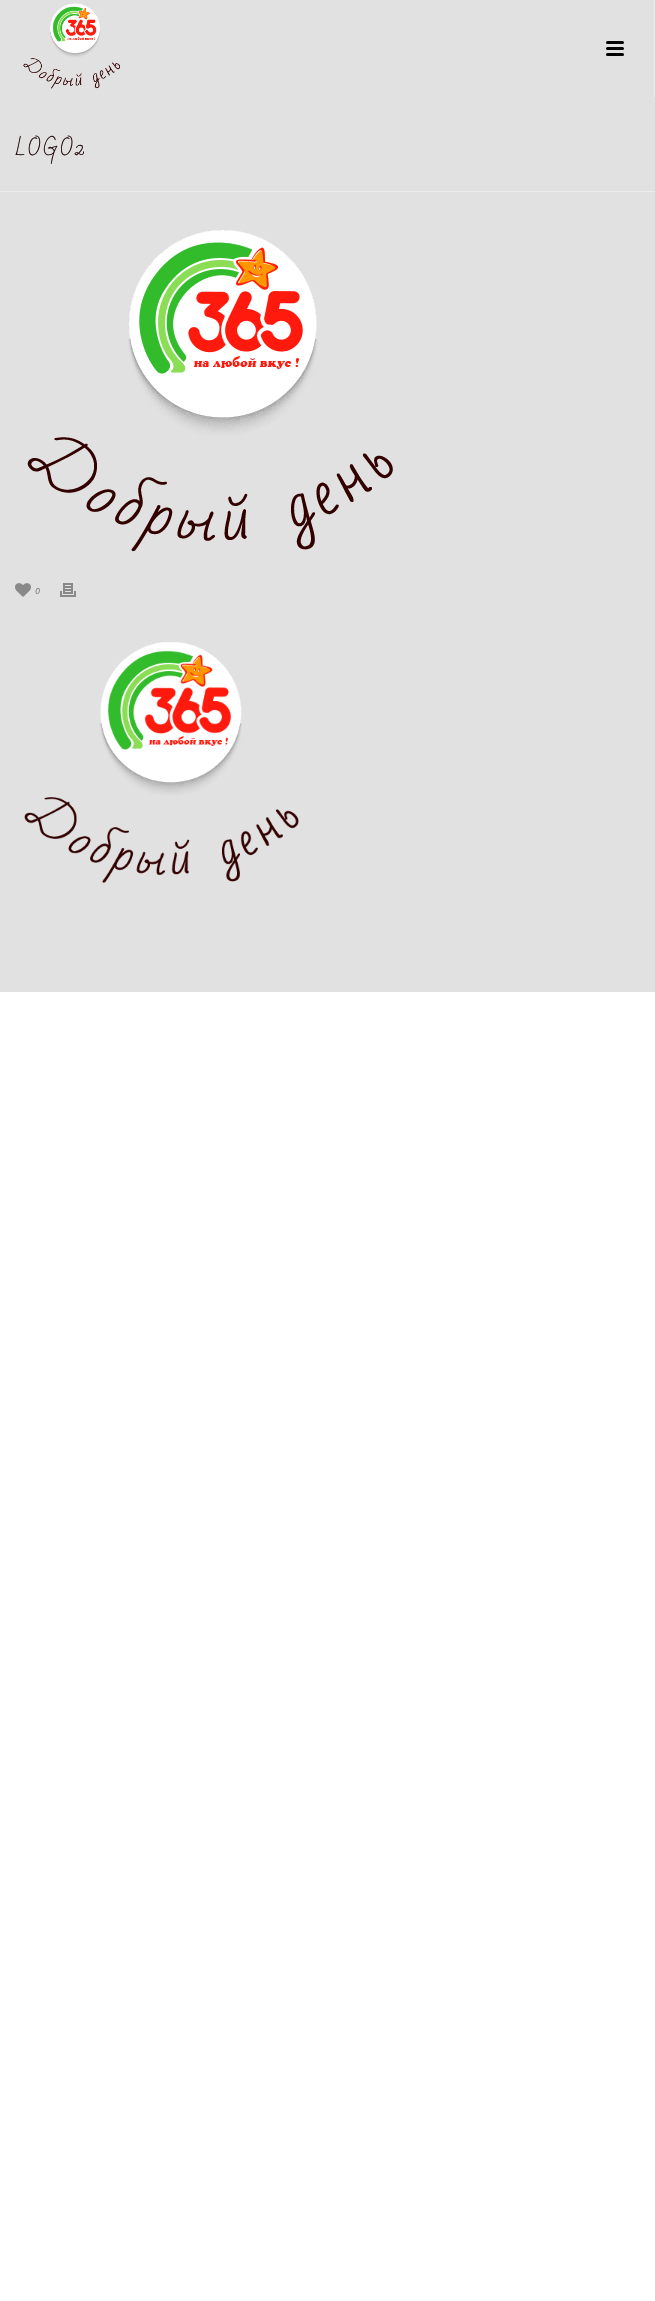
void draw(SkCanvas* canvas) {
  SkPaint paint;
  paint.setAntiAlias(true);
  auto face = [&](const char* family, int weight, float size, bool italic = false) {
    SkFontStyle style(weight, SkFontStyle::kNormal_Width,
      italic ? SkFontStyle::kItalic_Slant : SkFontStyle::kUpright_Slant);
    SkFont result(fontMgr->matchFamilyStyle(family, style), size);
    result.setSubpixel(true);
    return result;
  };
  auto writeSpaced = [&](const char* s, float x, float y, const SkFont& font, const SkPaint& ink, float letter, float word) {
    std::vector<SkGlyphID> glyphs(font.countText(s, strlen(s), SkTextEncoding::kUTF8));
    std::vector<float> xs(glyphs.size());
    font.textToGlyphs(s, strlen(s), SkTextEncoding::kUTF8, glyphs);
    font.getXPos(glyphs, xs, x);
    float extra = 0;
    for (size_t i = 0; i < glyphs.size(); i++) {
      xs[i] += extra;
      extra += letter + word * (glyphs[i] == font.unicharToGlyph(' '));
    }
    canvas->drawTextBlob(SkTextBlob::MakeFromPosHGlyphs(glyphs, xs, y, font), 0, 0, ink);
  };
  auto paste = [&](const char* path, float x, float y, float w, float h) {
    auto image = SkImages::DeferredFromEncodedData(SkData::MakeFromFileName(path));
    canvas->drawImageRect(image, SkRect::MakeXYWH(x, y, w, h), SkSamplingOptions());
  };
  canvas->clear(0xffffffff);
  {
    const struct { float x, y, w, h; SkColor color; } items[] = {
      {0, 0, 655, 191, 0xffe1e1e1},
      {0, 191, 655, 1, 0xffededed},
      {654, 0, 1, 97, 0xffededed},
    };
    for (auto [x, y, w, h, color] : items) {
      paint.setColor(color);
      canvas->drawRect(SkRect::MakeXYWH(x, y, w, h), paint);
    }
  }
  paste("img/1.png", 23, 3, 97, 86);
  paint.setColor(0xff000000);
  canvas->drawRoundRect(SkRect::MakeXYWH(606, 41, 18, 3), 1.5f, 1.5f, paint);
  canvas->drawRoundRect(SkRect::MakeXYWH(606, 47, 18, 3), 1.5f, 1.5f, paint);
  canvas->drawRoundRect(SkRect::MakeXYWH(606, 53, 18, 3), 1.5f, 1.5f, paint);
  paint.setColor(0xffe1e1e1);
  canvas->drawRect(SkRect::MakeXYWH(0, 192, 655, 800), paint);
  paste("img/2.png", 27, 230, 366, 322);
  paste("img/3.png", 15, 583, 16, 14);
  paste("img/4.png", 60, 583, 16, 14);
  paste("img/5.png", 24, 642, 275, 241);
  auto f0 = face("Bad Script", 400, 20);
  paint.setColor(0xff281111);
  writeSpaced("LOGO2", 15, 155, f0, paint, 2, 0);
  auto f1 = face("Bad Script", 700, 11);
  paint.setColor(0xff898989);
  canvas->drawString("0", 35, 594, f1, paint);
}
